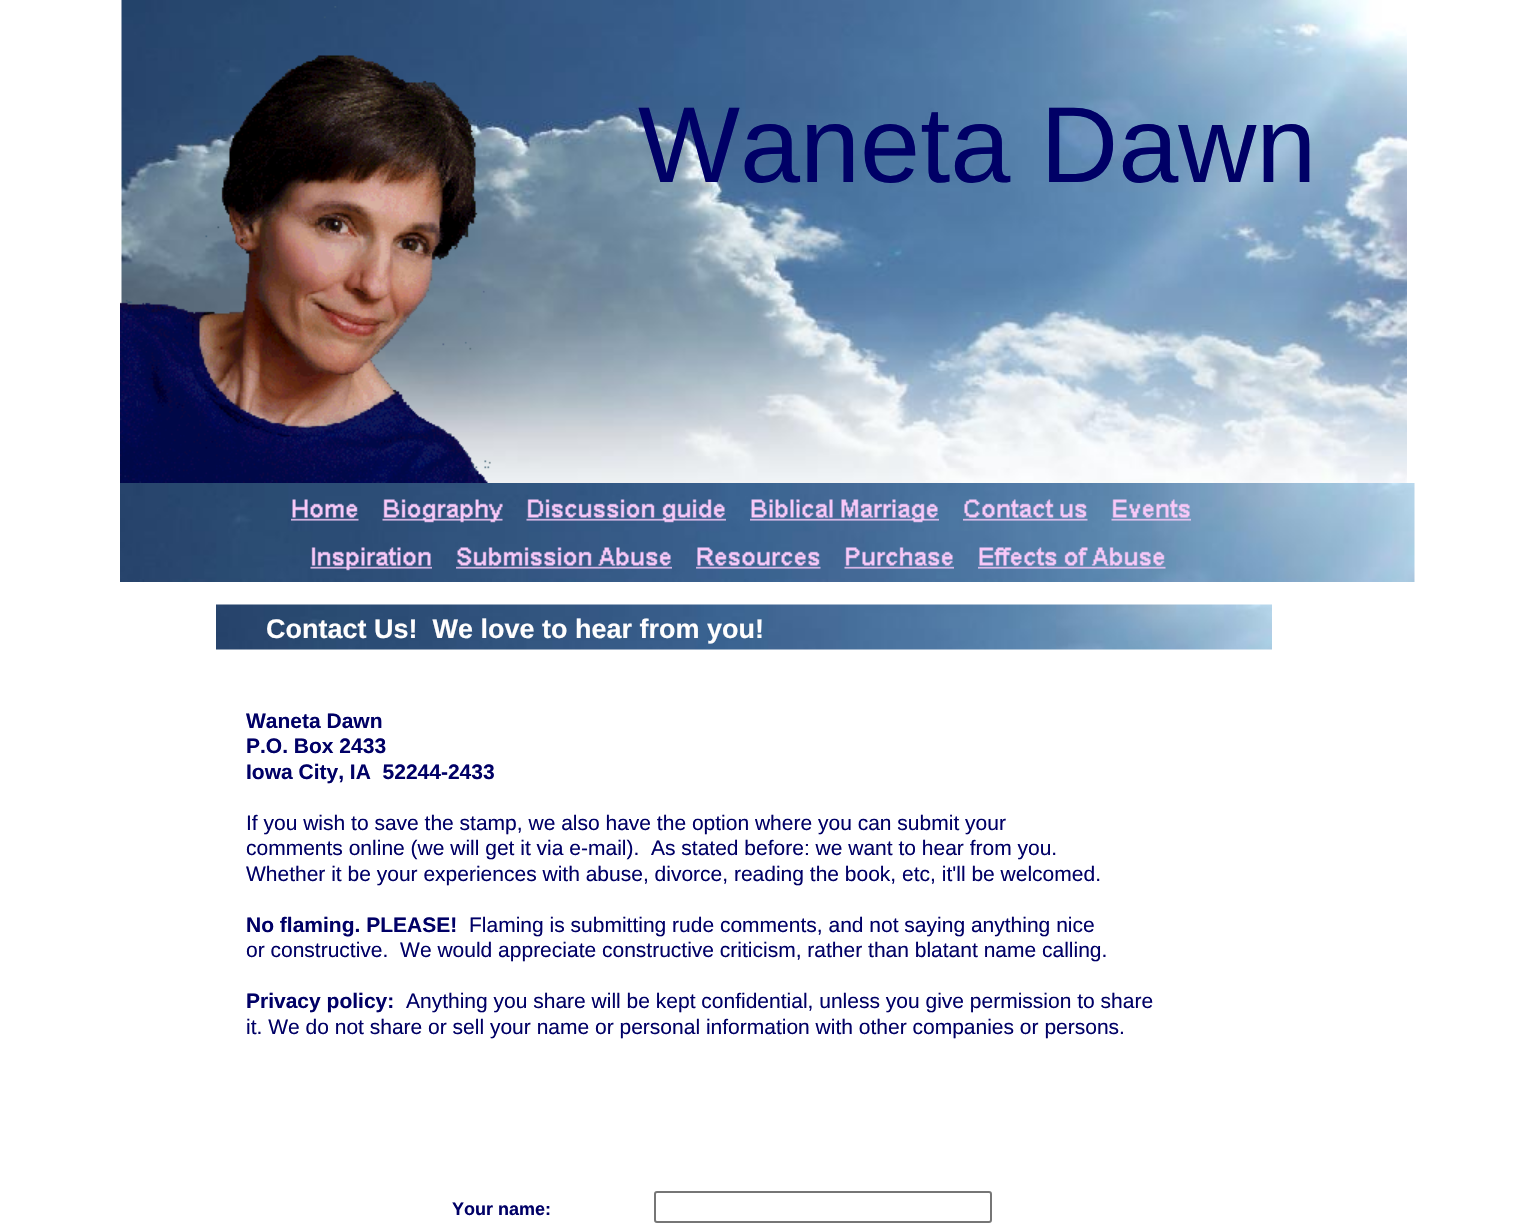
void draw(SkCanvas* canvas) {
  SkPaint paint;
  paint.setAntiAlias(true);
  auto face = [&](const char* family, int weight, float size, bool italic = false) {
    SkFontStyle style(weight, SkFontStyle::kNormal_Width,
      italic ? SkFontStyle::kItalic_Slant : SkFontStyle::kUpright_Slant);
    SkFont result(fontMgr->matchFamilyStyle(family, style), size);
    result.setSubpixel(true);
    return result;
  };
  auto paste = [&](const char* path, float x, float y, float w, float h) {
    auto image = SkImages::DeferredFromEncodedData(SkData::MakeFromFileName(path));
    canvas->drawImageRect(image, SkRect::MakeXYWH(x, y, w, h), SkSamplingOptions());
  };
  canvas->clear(0xffffffff);
  paste("img/1.png", 121, 0, 1286, 483);
  paste("img/2.png", 120, 6, 371, 477);
  paste("img/3.png", 120, 483, 1295, 99);
  paste("img/4.png", 291, 499, 68, 22);
  paste("img/5.png", 382, 499, 121, 24);
  paste("img/6.png", 526, 499, 200, 24);
  paste("img/7.png", 750, 499, 189, 24);
  paste("img/8.png", 963, 499, 125, 22);
  paste("img/9.png", 1111, 499, 80, 22);
  paste("img/10.png", 310, 547, 122, 24);
  paste("img/11.png", 456, 547, 216, 22);
  paste("img/12.png", 696, 547, 125, 22);
  paste("img/13.png", 844, 547, 110, 22);
  paste("img/14.png", 978, 547, 188, 22);
  paste("img/15.png", 216, 604, 1056, 46);
  paint.setStroke(true);
  paint.setStrokeWidth(2);
  paint.setColor(0xff767676);
  canvas->drawRoundRect(SkRect::MakeXYWH(655, 1192, 336, 30), 2, 2, paint);
  auto f0 = face("Liberation Sans", 400, 108);
  paint.setStroke(false);
  paint.setColor(0xff000066);
  canvas->drawString("Waneta Dawn", 638, 182, f0, paint);
  auto f1 = face("Liberation Sans", 700, 27);
  paint.setColor(0xfffffefe);
  canvas->drawString("Contact Us!  We love to hear from you!", 266, 638, f1, paint);
  auto f2 = face("Liberation Sans", 700, 21);
  paint.setColor(0xff000066);
  {
    const struct { const char* s; float x, y; } items[] = {
      {"Waneta Dawn", 246, 728},
      {"P.O. Box 2433", 246, 753},
      {"Iowa City, IA  52244-2433", 246, 779},
    };
    for (auto [s, x, y] : items) {
      canvas->drawString(s, x, y, f2, paint);
    }
  }
  auto f3 = face("Liberation Sans", 400, 21);
  {
    const struct { const char* s; float x, y; } items[] = {
      {"If you wish to save the stamp, we also have the option where you can submit your", 246, 830},
      {"comments online (we will get it via e-mail).  As stated before: we want to hear from you.", 246, 855},
      {"Whether it be your experiences with abuse, divorce, reading the book, etc, it'll be welcomed.", 246, 881},
    };
    for (auto [s, x, y] : items) {
      canvas->drawString(s, x, y, f3, paint);
    }
  }
  canvas->drawString("No flaming. PLEASE!", 246, 932, f2, paint);
  canvas->drawString("Flaming is submitting rude comments, and not saying anything nice", 469, 932, f3, paint);
  canvas->drawString("or constructive.  We would appreciate constructive criticism, rather than blatant name calling.", 246, 957, f3, paint);
  canvas->drawString("Privacy policy:", 246, 1008, f2, paint);
  canvas->drawString("Anything you share will be kept confidential, unless you give permission to share", 406, 1008, f3, paint);
  canvas->drawString("it. We do not share or sell your name or personal information with other companies or persons.", 246, 1034, f3, paint);
  auto f4 = face("Liberation Sans", 700, 18);
  canvas->drawString("Your name:", 452, 1215, f4, paint);
}
